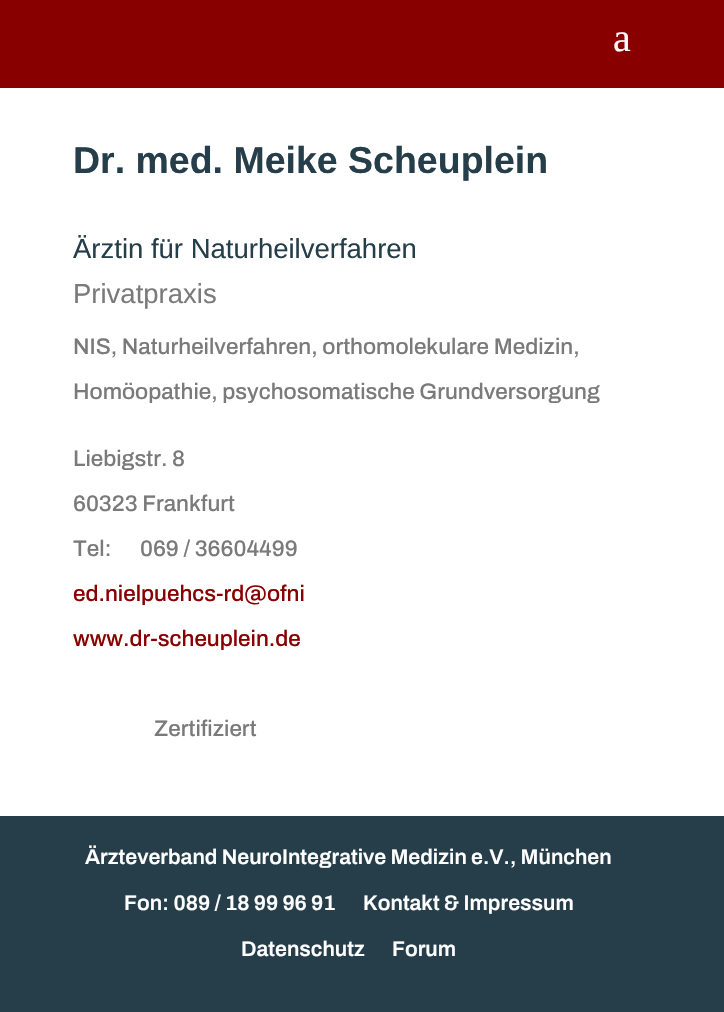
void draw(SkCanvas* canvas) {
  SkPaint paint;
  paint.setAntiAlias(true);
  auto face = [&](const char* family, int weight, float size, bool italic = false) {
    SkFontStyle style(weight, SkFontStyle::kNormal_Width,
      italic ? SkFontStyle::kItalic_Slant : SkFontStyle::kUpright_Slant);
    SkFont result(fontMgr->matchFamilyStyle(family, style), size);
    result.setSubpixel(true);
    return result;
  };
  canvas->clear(0xffffffff);
  paint.setColor(0xff890000);
  canvas->drawRect(SkRect::MakeXYWH(0, 0, 724, 88), paint);
  paint.setColor(0xff263e4a);
  canvas->drawRect(SkRect::MakeXYWH(0, 816, 724, 196), paint);
  auto f0 = face("Liberation Serif", 400, 40);
  paint.setColor(0xffffffff);
  canvas->drawString("a", 613, 51, f0, paint);
  auto f1 = face("Liberation Sans", 700, 37.5f);
  paint.setColor(0xff263e4a);
  canvas->drawString("Dr. med. Meike Scheuplein", 73, 173, f1, paint);
  auto f2 = face("Liberation Sans", 400, 27.5f);
  canvas->drawString("Ärztin für Naturheilverfahren", 73, 258, f2, paint);
  paint.setColor(0xff7a7a7a);
  canvas->drawString("Privatpraxis", 73, 303, f2, paint);
  auto f3 = face("Archivo", 500, 22.5f);
  {
    const struct { const char* s; float x, y; } items[] = {
      {"NIS, Naturheilverfahren, orthomolekulare Medizin,", 73, 354},
      {"Homöopathie, psychosomatische Grundversorgung", 73, 399},
      {"Liebigstr. 8", 73, 466},
      {"60323 Frankfurt", 73, 511},
      {"Tel:", 73, 556},
      {"069 / 36604499", 140, 556},
    };
    for (auto [s, x, y] : items) {
      canvas->drawString(s, x, y, f3, paint);
    }
  }
  paint.setColor(0xff890000);
  canvas->drawString("ed.nielpuehcs-rd@ofni", 73, 601, f3, paint);
  canvas->drawString("www.dr-scheuplein.de", 73, 646, f3, paint);
  paint.setColor(0xff7a7a7a);
  canvas->drawString("Zertifiziert", 154, 736, f3, paint);
  auto f4 = face("Archivo", 600, 21.25f);
  paint.setColor(0xffffffff);
  {
    const struct { const char* s; float x, y; } items[] = {
      {"Ärzteverband NeuroIntegrative Medizin e.V., München", 85, 864},
      {"Fon: 089 / 18 99 96 91", 124, 910},
      {"Kontakt & Impressum", 363, 910},
      {"Datenschutz", 241, 956},
      {"Forum", 392, 956},
    };
    for (auto [s, x, y] : items) {
      canvas->drawString(s, x, y, f4, paint);
    }
  }
}
